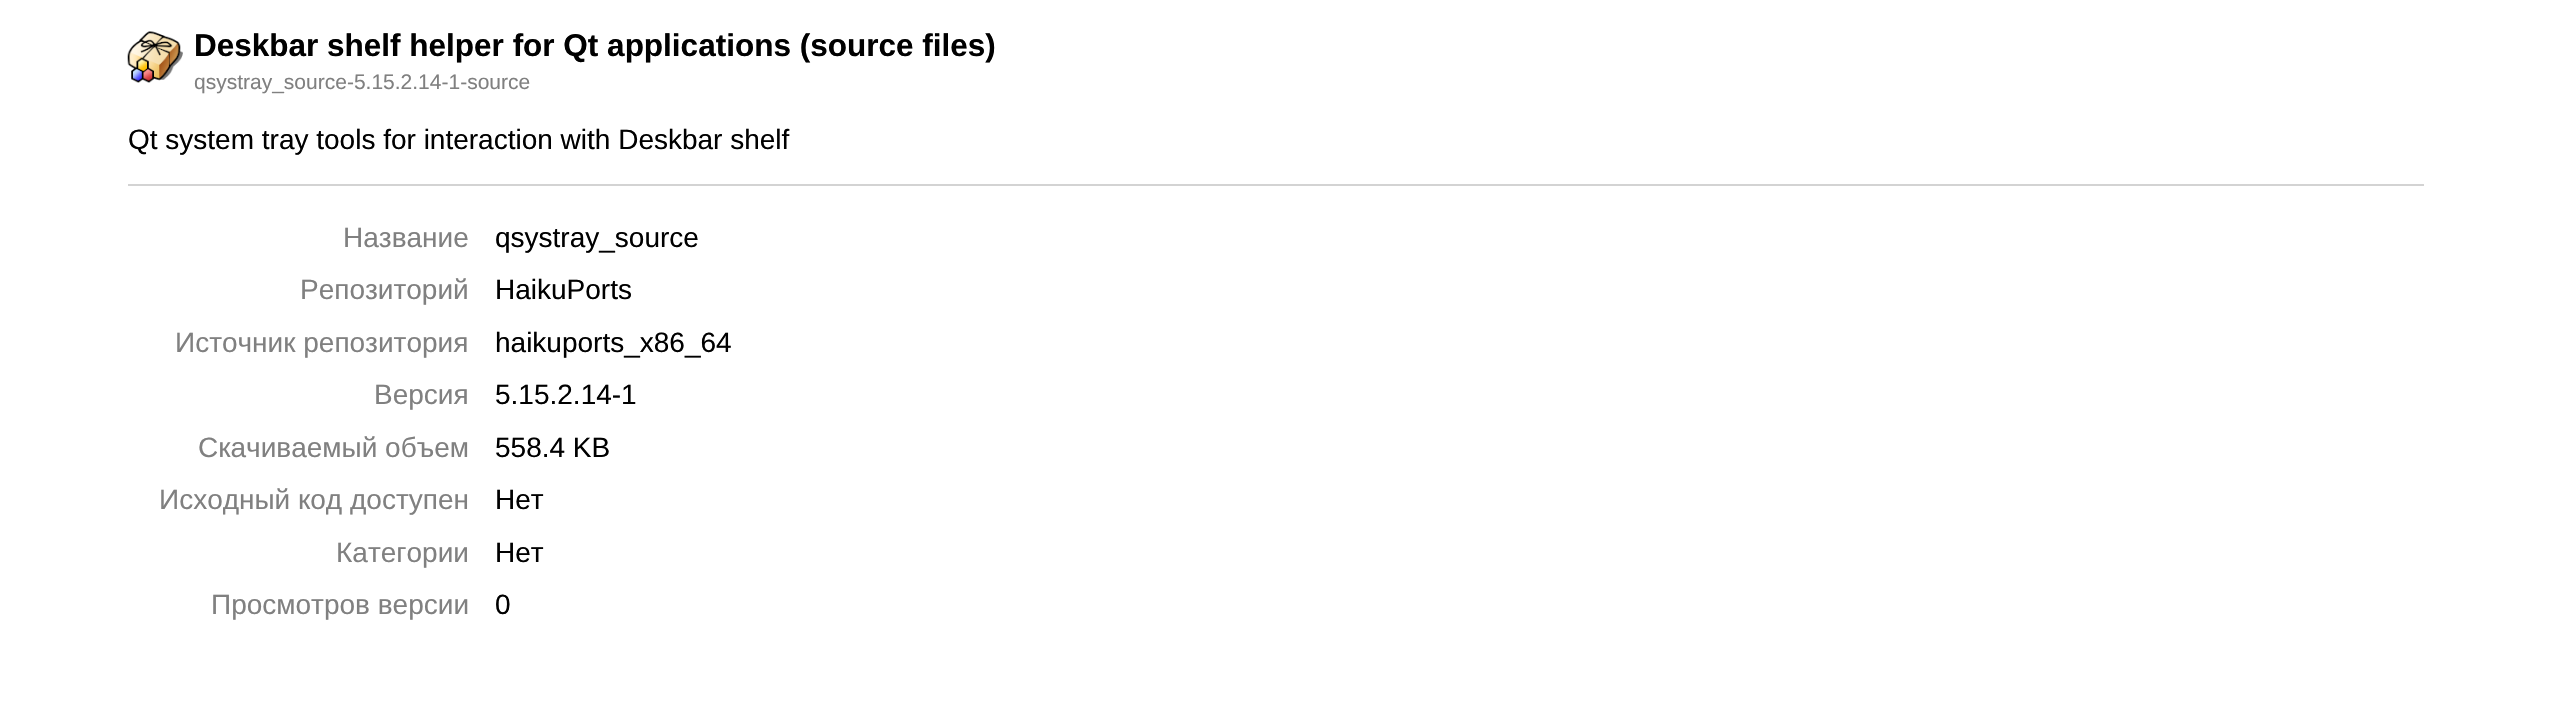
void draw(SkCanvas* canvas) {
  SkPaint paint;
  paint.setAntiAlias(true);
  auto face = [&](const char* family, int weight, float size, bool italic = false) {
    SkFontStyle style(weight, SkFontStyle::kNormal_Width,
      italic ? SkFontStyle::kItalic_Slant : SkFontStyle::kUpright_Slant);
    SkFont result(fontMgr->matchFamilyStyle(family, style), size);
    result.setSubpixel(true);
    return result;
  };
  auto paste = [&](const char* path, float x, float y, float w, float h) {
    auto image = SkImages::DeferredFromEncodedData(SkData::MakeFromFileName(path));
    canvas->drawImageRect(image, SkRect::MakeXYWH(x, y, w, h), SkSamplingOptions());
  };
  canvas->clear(0xffffffff);
  paste("img/1.png", 127, 31, 56, 52);
  paint.setColor(0xffd3d3d3);
  canvas->drawRect(SkRect::MakeXYWH(128, 184, 2296, 2), paint);
  auto f0 = face("Liberation Sans", 700, 31.5f);
  paint.setColor(0xff000000);
  canvas->drawString("Deskbar shelf helper for Qt applications (source files)", 194, 56, f0, paint);
  auto f1 = face("Liberation Sans", 400, 21);
  paint.setColor(0xff808080);
  canvas->drawString("qsystray_source-5.15.2.14-1-source", 194, 89, f1, paint);
  auto f2 = face("Liberation Sans", 400, 28);
  paint.setColor(0xff000000);
  canvas->drawString("Qt system tray tools for interaction with Deskbar shelf", 128, 149, f2, paint);
  paint.setColor(0xff808080);
  canvas->drawString("Название", 343, 247, f2, paint);
  paint.setColor(0xff000000);
  canvas->drawString("qsystray_source", 495, 247, f2, paint);
  paint.setColor(0xff808080);
  canvas->drawString("Репозиторий", 300, 299, f2, paint);
  paint.setColor(0xff000000);
  canvas->drawString("HaikuPorts", 495, 299, f2, paint);
  paint.setColor(0xff808080);
  canvas->drawString("Источник репозитория", 175, 352, f2, paint);
  paint.setColor(0xff000000);
  canvas->drawString("haikuports_x86_64", 495, 352, f2, paint);
  paint.setColor(0xff808080);
  canvas->drawString("Версия", 374, 404, f2, paint);
  paint.setColor(0xff000000);
  canvas->drawString("5.15.2.14-1", 495, 404, f2, paint);
  paint.setColor(0xff808080);
  canvas->drawString("Скачиваемый объем", 198, 457, f2, paint);
  paint.setColor(0xff000000);
  canvas->drawString("558.4 KB", 495, 457, f2, paint);
  paint.setColor(0xff808080);
  canvas->drawString("Исходный код доступен", 159, 509, f2, paint);
  paint.setColor(0xff000000);
  canvas->drawString("Нет", 495, 509, f2, paint);
  paint.setColor(0xff808080);
  canvas->drawString("Категории", 336, 562, f2, paint);
  paint.setColor(0xff000000);
  canvas->drawString("Нет", 495, 562, f2, paint);
  paint.setColor(0xff808080);
  canvas->drawString("Просмотров версии", 211, 614, f2, paint);
  paint.setColor(0xff000000);
  canvas->drawString("0", 495, 614, f2, paint);
}
